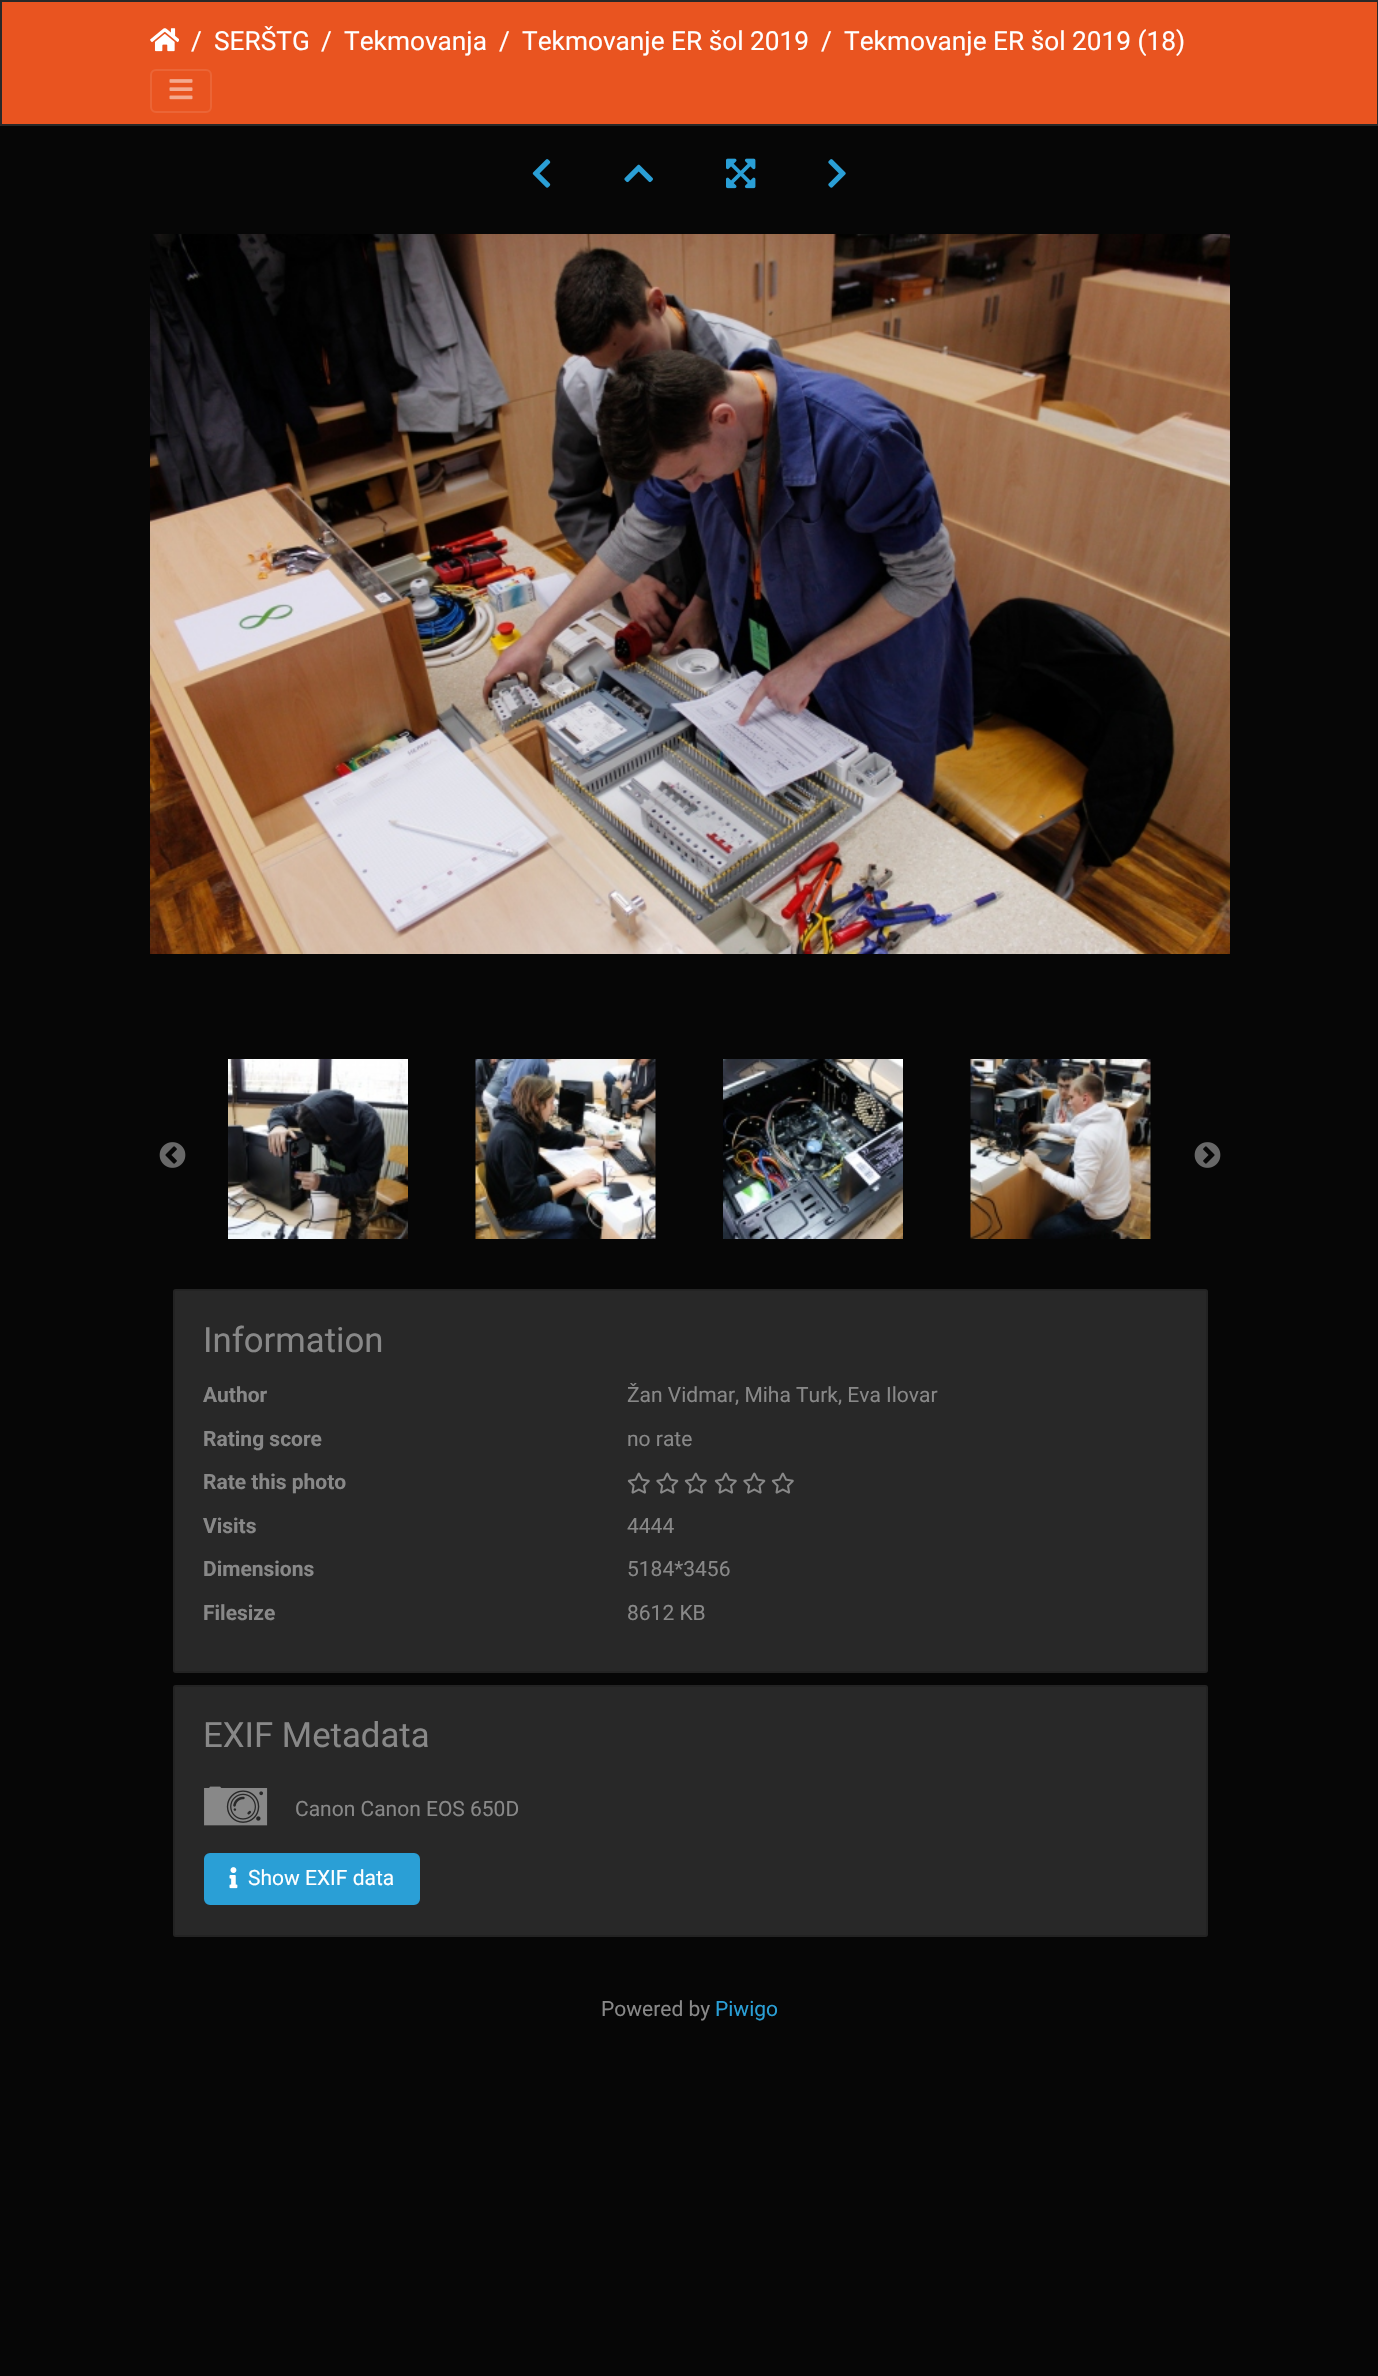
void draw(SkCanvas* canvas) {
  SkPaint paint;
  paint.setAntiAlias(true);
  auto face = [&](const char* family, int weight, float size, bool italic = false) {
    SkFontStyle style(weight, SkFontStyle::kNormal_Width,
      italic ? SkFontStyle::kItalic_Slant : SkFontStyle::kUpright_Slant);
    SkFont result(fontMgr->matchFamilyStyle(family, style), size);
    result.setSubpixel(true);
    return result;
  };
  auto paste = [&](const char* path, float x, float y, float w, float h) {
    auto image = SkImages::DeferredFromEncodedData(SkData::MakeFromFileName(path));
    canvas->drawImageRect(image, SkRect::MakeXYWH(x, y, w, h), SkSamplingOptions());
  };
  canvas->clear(0xff060606);
  paint.setColor(0xffe95420);
  canvas->drawRect(SkRect::MakeXYWH(1, 1, 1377, 124), paint);
  paint.setStroke(true);
  paint.setStrokeWidth(2);
  paint.setColor(0xff282828);
  canvas->drawRect(SkRect::MakeXYWH(1, 1, 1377, 124), paint);
  paste("img/1.png", 150, 28, 29, 24);
  paint.setColor(0xffeb6536);
  canvas->drawRoundRect(SkRect::MakeXYWH(151, 70, 60, 42), 5, 5, paint);
  paste("img/2.png", 169, 79, 24, 21);
  paste("img/3.png", 532, 159, 19, 29);
  paste("img/4.png", 624, 164, 29, 19);
  paste("img/5.png", 726, 158, 30, 31);
  paste("img/6.png", 828, 159, 18, 29);
  paste("img/7.png", 150, 234, 1080, 720);
  paste("img/8.png", 159, 1142, 27, 26);
  paste("img/9.png", 228, 1059, 180, 180);
  paste("img/10.png", 475, 1059, 181, 180);
  paste("img/11.png", 723, 1059, 180, 180);
  paste("img/12.png", 970, 1059, 181, 180);
  paste("img/13.png", 1194, 1142, 27, 26);
  paint.setStroke(false);
  paint.setColor(0xff282828);
  canvas->drawRoundRect(SkRect::MakeXYWH(173, 1289, 1035, 384), 3, 3, paint);
  paint.setStroke(true);
  paint.setColor(0x1f000000);
  canvas->drawRoundRect(SkRect::MakeXYWH(174, 1290, 1033, 382), 2, 2, paint);
  paste("img/14.png", 627, 1472, 23, 22);
  paste("img/15.png", 656, 1472, 23, 22);
  paste("img/14.png", 684, 1472, 23, 22);
  paste("img/14.png", 714, 1472, 23, 22);
  paste("img/15.png", 743, 1472, 23, 22);
  paste("img/14.png", 771, 1472, 23, 22);
  paint.setStroke(false);
  paint.setColor(0xff282828);
  canvas->drawRoundRect(SkRect::MakeXYWH(173, 1685, 1035, 252), 3, 3, paint);
  paint.setStroke(true);
  paint.setColor(0x1f000000);
  canvas->drawRoundRect(SkRect::MakeXYWH(174, 1686, 1033, 250), 2, 2, paint);
  paste("img/16.png", 204, 1786, 64, 40);
  paint.setStroke(false);
  paint.setColor(0xff2a9fd6);
  canvas->drawRoundRect(SkRect::MakeXYWH(205, 1854, 214, 50), 5, 5, paint);
  paint.setStroke(true);
  canvas->drawRoundRect(SkRect::MakeXYWH(205, 1854, 214, 50), 5, 5, paint);
  paste("img/17.png", 229, 1867, 9, 22);
  auto f0 = face("Roboto", 400, 26.25f);
  paint.setStroke(false);
  paint.setColor(0xffffffff);
  {
    const struct { const char* s; float x, y; } items[] = {
      {"/", 191, 50},
      {"SERŠTG", 214, 50},
      {"/", 321, 50},
      {"Tekmovanja", 344, 50},
      {"/", 499, 50},
      {"Tekmovanje ER šol 2019", 522, 50},
      {"/", 821, 50},
      {"Tekmovanje ER šol 2019 (18)", 844, 50},
    };
    for (auto [s, x, y] : items) {
      canvas->drawString(s, x, y, f0, paint);
    }
  }
  auto f1 = face("Roboto", 400, 34.75f);
  paint.setColor(0xff888888);
  canvas->drawString("Information", 203, 1352, f1, paint);
  auto f2 = face("Roboto", 700, 21);
  canvas->drawString("Author", 203, 1402, f2, paint);
  auto f3 = face("Roboto", 400, 21);
  canvas->drawString("Žan Vidmar, Miha Turk, Eva Ilovar", 627, 1402, f3, paint);
  canvas->drawString("Rating score", 203, 1446, f2, paint);
  canvas->drawString("no rate", 627, 1446, f3, paint);
  canvas->drawString("Rate this photo", 203, 1489, f2, paint);
  canvas->drawString("Visits", 203, 1533, f2, paint);
  canvas->drawString("4444", 627, 1533, f3, paint);
  canvas->drawString("Dimensions", 203, 1576, f2, paint);
  canvas->drawString("5184*3456", 627, 1576, f3, paint);
  canvas->drawString("Filesize", 203, 1620, f2, paint);
  canvas->drawString("8612 KB", 627, 1620, f3, paint);
  canvas->drawString("EXIF Metadata", 203, 1747, f1, paint);
  canvas->drawString("Canon Canon EOS 650D", 295, 1816, f3, paint);
  paint.setColor(0xffffffff);
  canvas->drawString("Show EXIF data", 248, 1885, f3, paint);
  paint.setColor(0xff888888);
  canvas->drawString("Powered by", 601, 2016, f3, paint);
  paint.setColor(0xff2a9fd6);
  canvas->drawString("Piwigo", 715, 2016, f3, paint);
}
